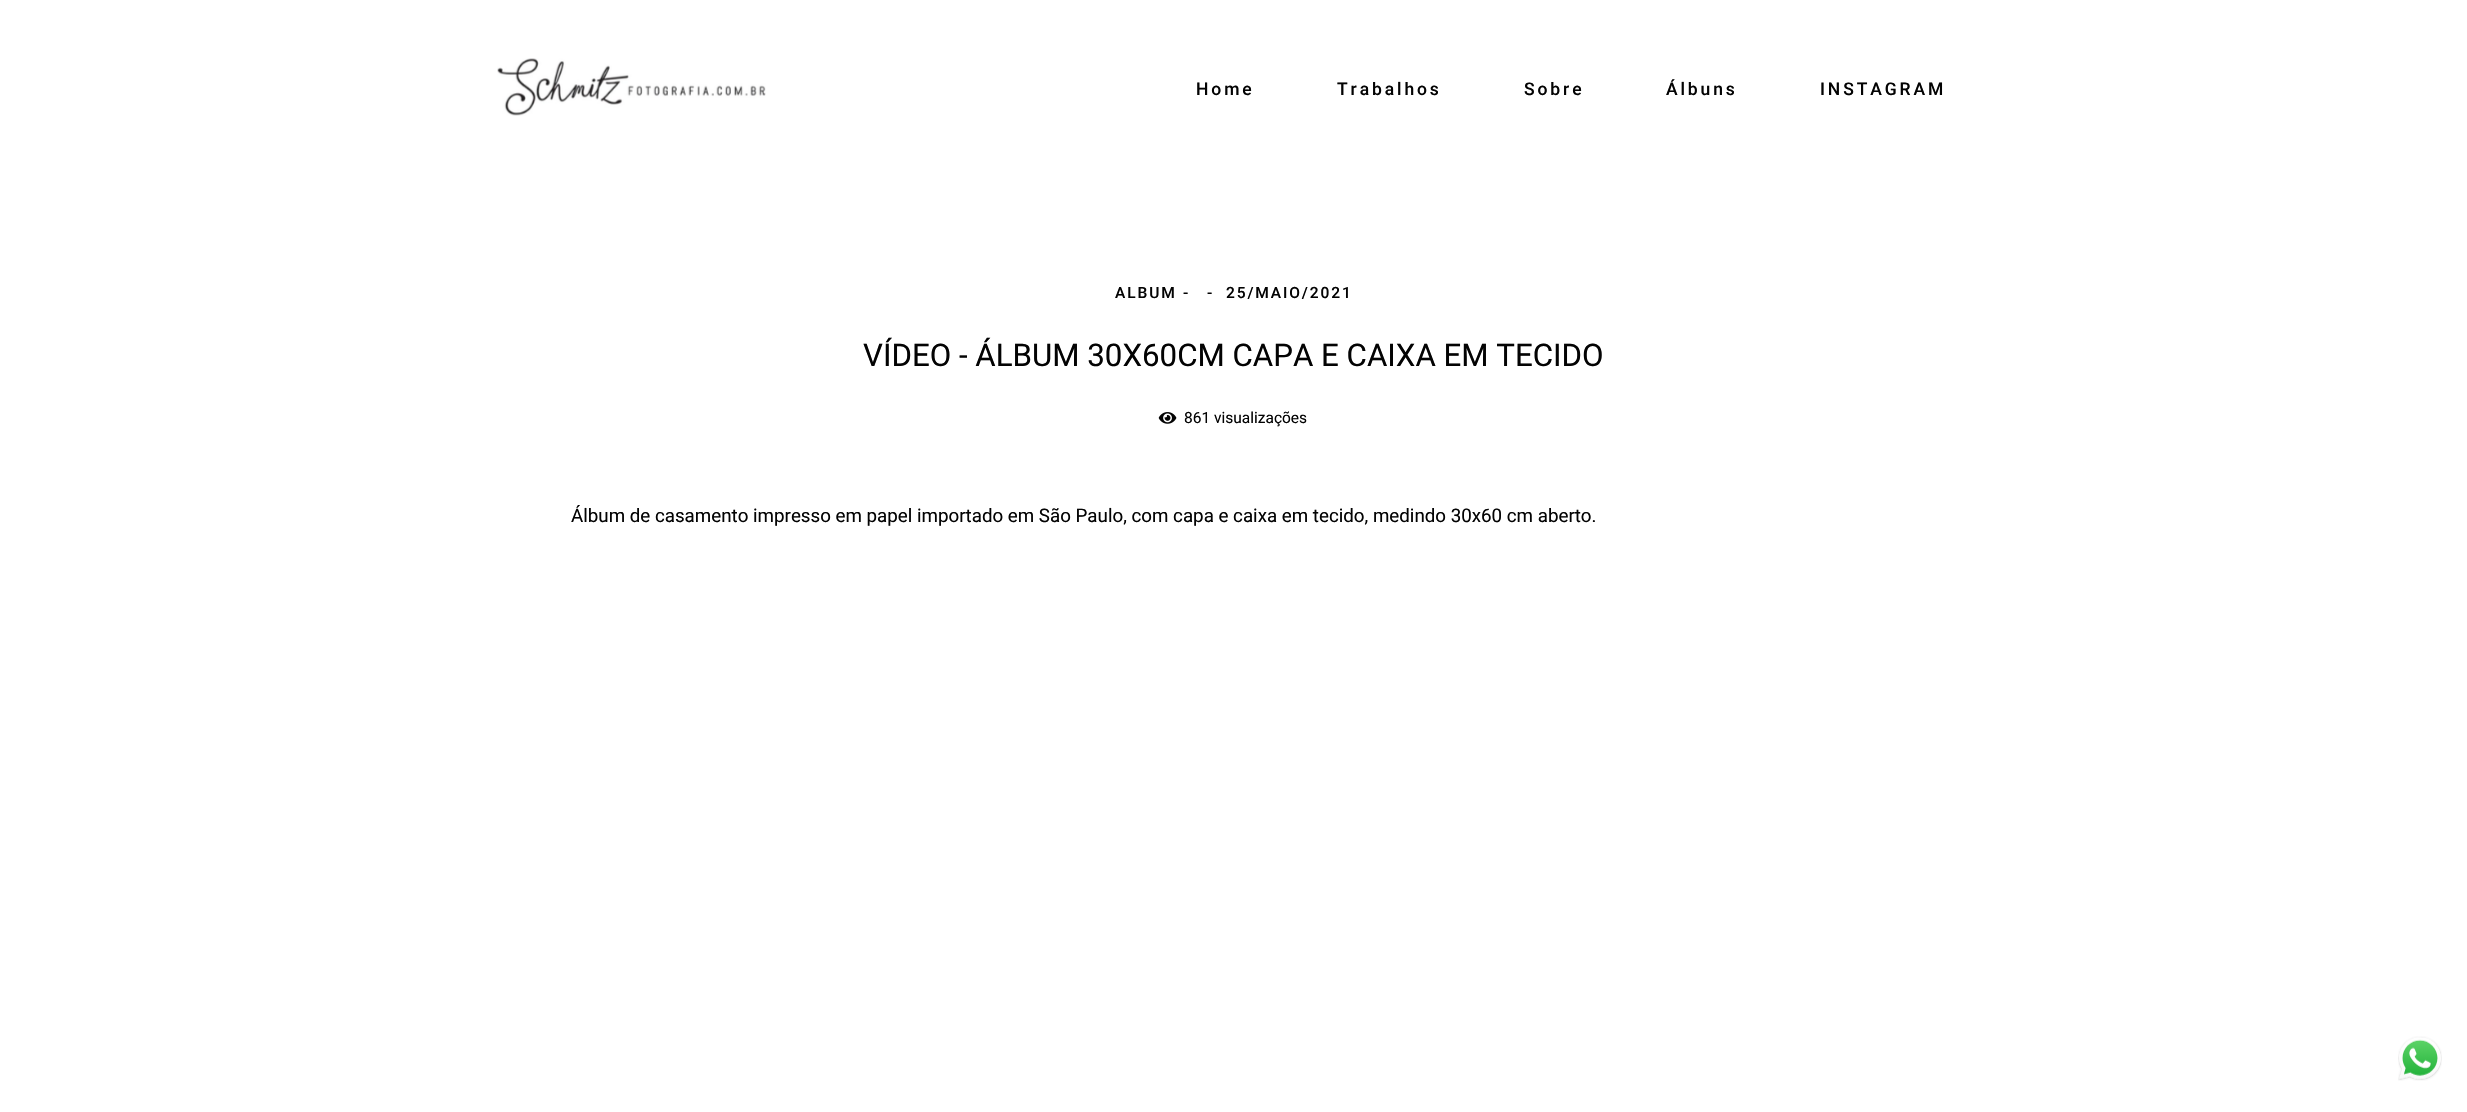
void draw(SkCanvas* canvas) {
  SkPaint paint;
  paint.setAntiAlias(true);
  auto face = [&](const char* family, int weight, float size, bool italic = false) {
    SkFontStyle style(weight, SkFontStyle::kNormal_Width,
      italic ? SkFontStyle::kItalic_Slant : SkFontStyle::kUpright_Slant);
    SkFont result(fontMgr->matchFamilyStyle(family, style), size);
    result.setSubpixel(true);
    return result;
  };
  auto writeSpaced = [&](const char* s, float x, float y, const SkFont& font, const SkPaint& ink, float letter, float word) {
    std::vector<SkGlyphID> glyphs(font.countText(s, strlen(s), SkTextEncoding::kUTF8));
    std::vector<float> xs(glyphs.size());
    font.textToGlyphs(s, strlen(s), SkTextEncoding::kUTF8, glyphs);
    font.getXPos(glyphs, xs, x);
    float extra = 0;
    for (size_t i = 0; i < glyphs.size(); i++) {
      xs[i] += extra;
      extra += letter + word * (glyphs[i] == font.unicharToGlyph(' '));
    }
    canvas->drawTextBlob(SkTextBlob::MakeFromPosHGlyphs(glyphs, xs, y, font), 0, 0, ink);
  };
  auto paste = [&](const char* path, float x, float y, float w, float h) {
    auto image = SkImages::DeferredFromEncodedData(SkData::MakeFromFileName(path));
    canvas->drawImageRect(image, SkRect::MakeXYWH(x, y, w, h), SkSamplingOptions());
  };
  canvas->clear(0xffffffff);
  paste("img/1.png", 497, 58, 269, 58);
  paste("img/2.png", 1158, 412, 19, 12);
  paste("img/3.png", 2398, 1036, 44, 45);
  auto f0 = face("Roboto", 500, 17.5f);
  paint.setColor(0xff030303);
  {
    const struct { const char* s; float x, y; } items[] = {
      {"Home", 1196, 95},
      {"Trabalhos", 1337, 95},
      {"Sobre", 1524, 95},
      {"Álbuns", 1666, 95},
      {"INSTAGRAM", 1820, 95},
    };
    for (auto [s, x, y] : items) {
      writeSpaced(s, x, y, f0, paint, 2.9f, 0);
    }
  }
  auto f1 = face("Roboto", 500, 15.5f);
  {
    const struct { const char* s; float x, y; } items[] = {
      {"ALBUM", 1115, 298},
      {"-", 1183, 298},
      {"-", 1207, 298},
      {"25/MAIO/2021", 1226, 298},
    };
    for (auto [s, x, y] : items) {
      writeSpaced(s, x, y, f1, paint, 1.9f, 0);
    }
  }
  auto f2 = face("Roboto", 400, 31.25f);
  canvas->drawString("VÍDEO - ÁLBUM 30X60CM CAPA E CAIXA EM TECIDO", 863, 366, f2, paint);
  auto f3 = face("Roboto", 400, 15.5f);
  canvas->drawString("861 visualizações", 1184, 423, f3, paint);
  auto f4 = face("Roboto", 400, 18.75f);
  canvas->drawString("Álbum de casamento impresso em papel importado em São Paulo, com capa e caixa em tecido, medindo 30x60 cm aberto.", 571, 522, f4, paint);
}
